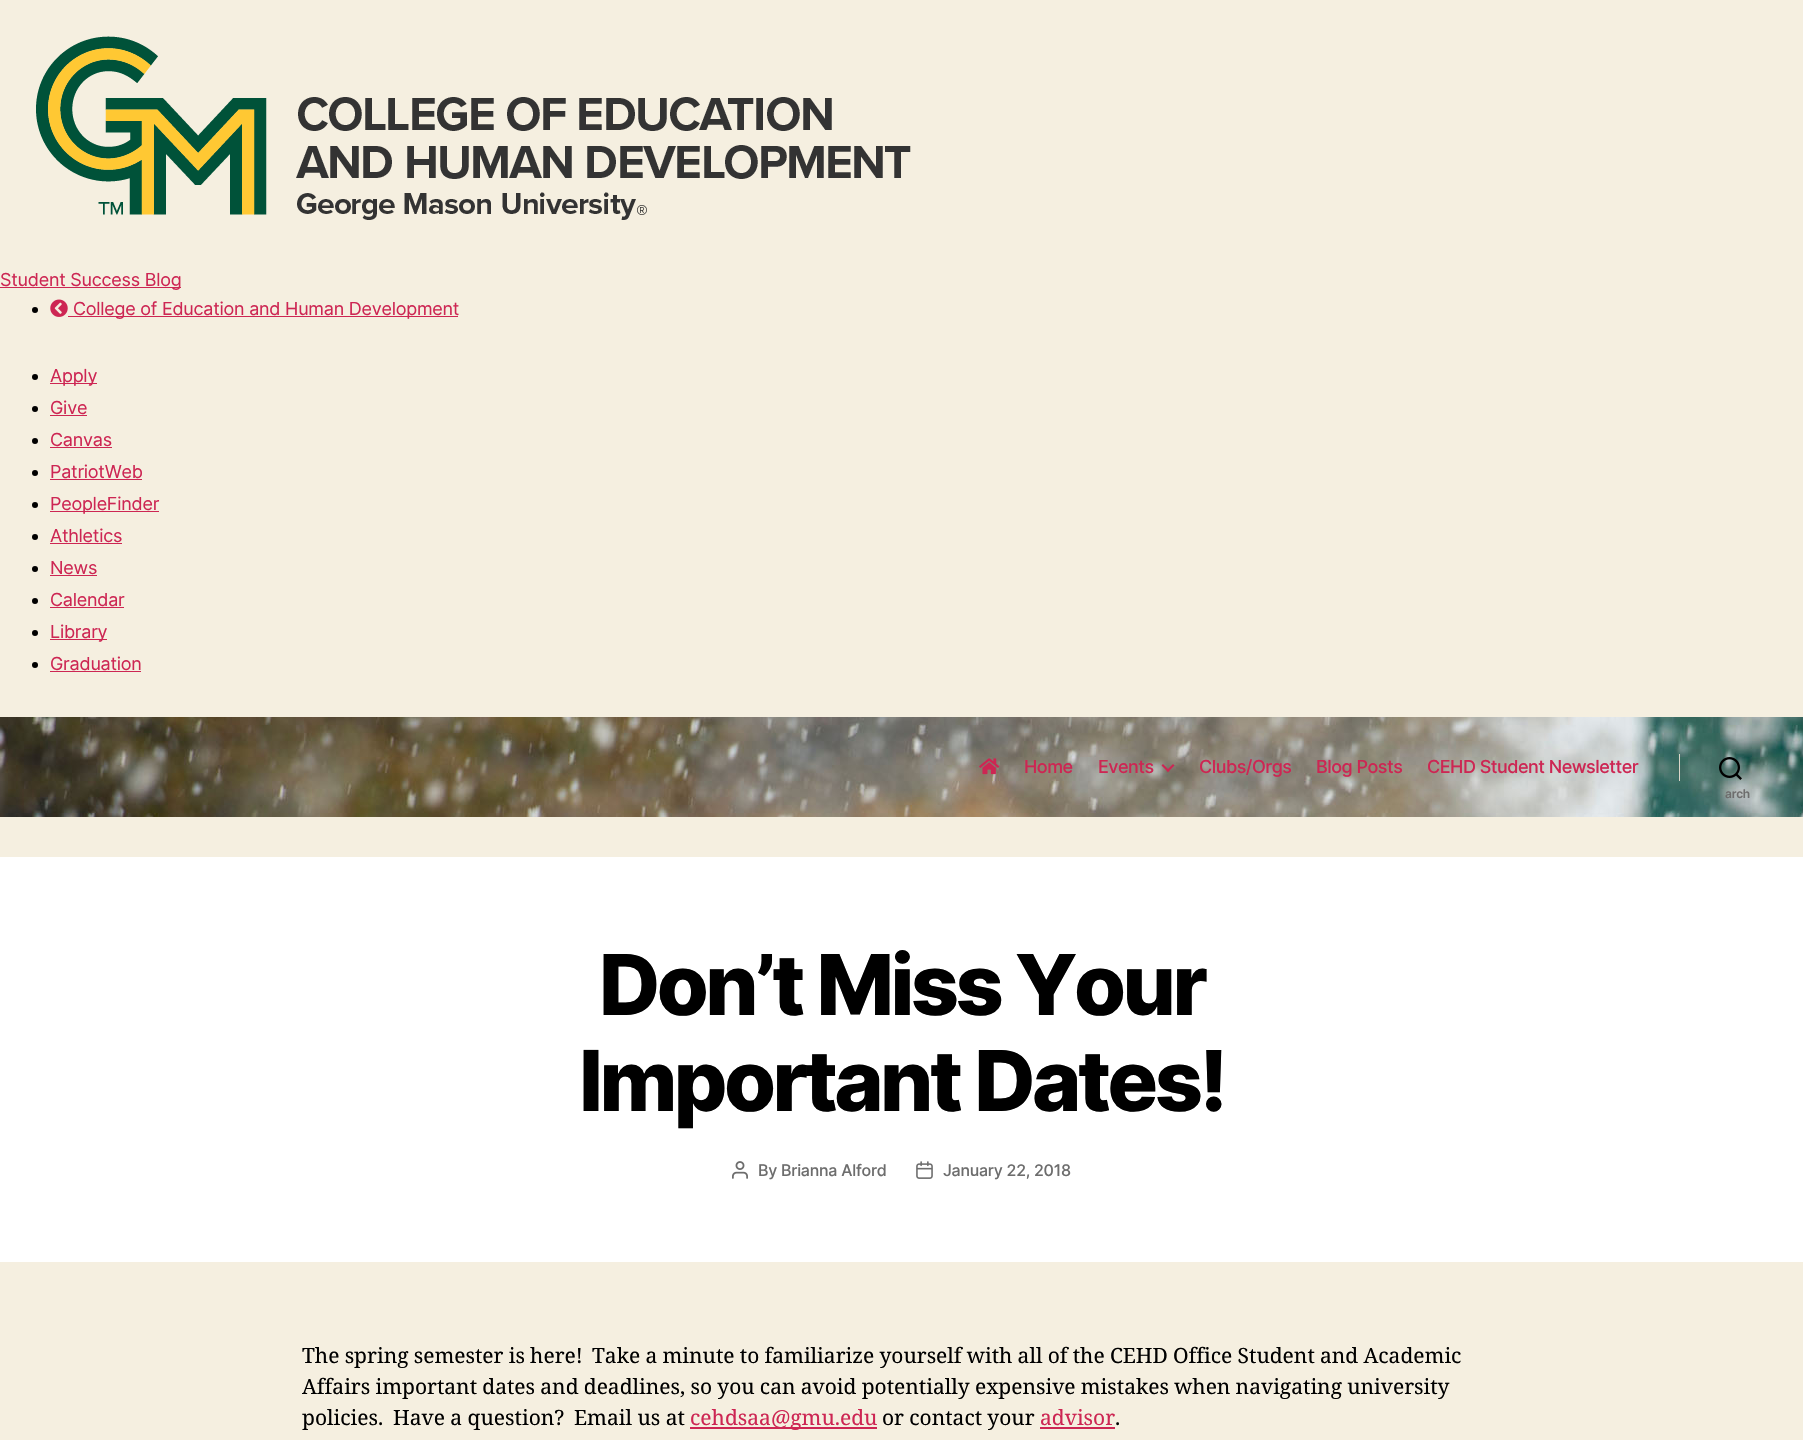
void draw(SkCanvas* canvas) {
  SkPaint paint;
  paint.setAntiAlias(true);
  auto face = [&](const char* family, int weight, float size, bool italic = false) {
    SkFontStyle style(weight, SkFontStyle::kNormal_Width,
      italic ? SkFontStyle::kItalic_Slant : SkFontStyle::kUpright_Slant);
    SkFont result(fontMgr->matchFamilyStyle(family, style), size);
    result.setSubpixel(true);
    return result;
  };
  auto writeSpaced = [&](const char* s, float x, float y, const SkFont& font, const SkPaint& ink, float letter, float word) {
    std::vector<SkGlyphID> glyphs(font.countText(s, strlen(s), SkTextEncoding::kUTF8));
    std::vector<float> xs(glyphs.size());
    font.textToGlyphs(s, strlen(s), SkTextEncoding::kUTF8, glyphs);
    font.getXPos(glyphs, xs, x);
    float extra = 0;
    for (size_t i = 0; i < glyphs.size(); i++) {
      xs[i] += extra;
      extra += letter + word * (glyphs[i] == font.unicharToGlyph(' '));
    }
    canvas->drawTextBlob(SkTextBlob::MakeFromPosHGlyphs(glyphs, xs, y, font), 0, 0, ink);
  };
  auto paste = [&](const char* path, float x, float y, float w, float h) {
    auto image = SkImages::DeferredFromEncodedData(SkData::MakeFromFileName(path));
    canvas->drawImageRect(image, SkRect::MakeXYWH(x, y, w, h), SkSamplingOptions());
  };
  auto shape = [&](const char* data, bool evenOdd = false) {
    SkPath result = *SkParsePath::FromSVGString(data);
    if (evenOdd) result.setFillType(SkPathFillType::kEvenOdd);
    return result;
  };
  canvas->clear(0xfff5efe0);
  paste("img/1.png", 36, 36, 875, 184);
  paint.setColor(0xffcd2653);
  canvas->drawRect(SkRect::MakeXYWH(0, 287, 181, 1), paint);
  paint.setColor(0xff000000);
  canvas->drawCircle(35, 310, 3, paint);
  paste("img/2.png", 50, 299, 18, 18);
  paint.setColor(0xffcd2653);
  canvas->drawRect(SkRect::MakeXYWH(68, 316, 390, 1), paint);
  paint.setColor(0xff000000);
  canvas->drawCircle(35, 377, 3, paint);
  paint.setColor(0xffcd2653);
  canvas->drawRect(SkRect::MakeXYWH(50, 383, 47, 1), paint);
  paint.setColor(0xff000000);
  canvas->drawCircle(35, 409, 3, paint);
  paint.setColor(0xffcd2653);
  canvas->drawRect(SkRect::MakeXYWH(50, 415, 37, 1), paint);
  paint.setColor(0xff000000);
  canvas->drawCircle(35, 441, 3, paint);
  paint.setColor(0xffcd2653);
  canvas->drawRect(SkRect::MakeXYWH(50, 447, 62, 1), paint);
  paint.setColor(0xff000000);
  canvas->drawCircle(35, 473, 3, paint);
  paint.setColor(0xffcd2653);
  canvas->drawRect(SkRect::MakeXYWH(50, 479, 92, 1), paint);
  paint.setColor(0xff000000);
  canvas->drawCircle(35, 505, 3, paint);
  paint.setColor(0xffcd2653);
  canvas->drawRect(SkRect::MakeXYWH(50, 511, 109, 1), paint);
  paint.setColor(0xff000000);
  canvas->drawCircle(35, 537, 3, paint);
  paint.setColor(0xffcd2653);
  canvas->drawRect(SkRect::MakeXYWH(50, 543, 72, 1), paint);
  paint.setColor(0xff000000);
  canvas->drawCircle(35, 569, 3, paint);
  paint.setColor(0xffcd2653);
  canvas->drawRect(SkRect::MakeXYWH(50, 575, 47, 1), paint);
  paint.setColor(0xff000000);
  canvas->drawCircle(35, 601, 3, paint);
  paint.setColor(0xffcd2653);
  canvas->drawRect(SkRect::MakeXYWH(50, 607, 74, 1), paint);
  paint.setColor(0xff000000);
  canvas->drawCircle(35, 633, 3, paint);
  paint.setColor(0xffcd2653);
  canvas->drawRect(SkRect::MakeXYWH(50, 639, 57, 1), paint);
  paint.setColor(0xff000000);
  canvas->drawCircle(35, 665, 3, paint);
  paint.setColor(0xffcd2653);
  canvas->drawRect(SkRect::MakeXYWH(50, 671, 91, 1), paint);
  paste("img/3.png", 0, 717, 1803, 100);
  paste("img/4.png", 979, 758, 21, 17);
  canvas->drawPath(shape("M1161.5 765.5L1163 764L1169.5 770.5L1168 772Z"), paint);
  canvas->drawPath(shape("M1166.5 770.5L1173 764L1174.5 765.5L1168 772Z"), paint);
  paint.setColor(0xffdcd7ca);
  canvas->drawRect(SkRect::MakeXYWH(1679, 754, 1, 27), paint);
  paste("img/5.png", 1719, 757, 23, 23);
  paint.setColor(0xffffffff);
  canvas->drawRect(SkRect::MakeXYWH(0, 857, 1803, 405), paint);
  paste("img/6.png", 732, 1161, 16, 18);
  paste("img/7.png", 916, 1161, 17, 18);
  paint.setColor(0xffcd2653);
  canvas->drawRect(SkRect::MakeXYWH(690, 1427, 187, 2), paint);
  canvas->drawRect(SkRect::MakeXYWH(1040, 1427, 75, 2), paint);
  auto f0 = face("Inter", 400, 18);
  {
    const struct { const char* s; float x, y; } items[] = {
      {"Student Success Blog", 0, 286},
      {"College of Education and Human Development", 73, 315},
      {"Apply", 50, 382},
      {"Give", 50, 414},
      {"Canvas", 50, 446},
      {"PatriotWeb", 50, 478},
      {"PeopleFinder", 50, 510},
      {"Athletics", 50, 542},
      {"News", 50, 574},
      {"Calendar", 50, 606},
      {"Library", 50, 638},
      {"Graduation", 50, 670},
    };
    for (auto [s, x, y] : items) {
      writeSpaced(s, x, y, f0, paint, -0.25f, 0);
    }
  }
  auto f1 = face("Inter", 500, 18);
  {
    const struct { const char* s; float x, y; } items[] = {
      {"Home", 1024, 773},
      {"Events", 1098, 773},
      {"Clubs/Orgs", 1199, 773},
      {"Blog Posts", 1316, 773},
      {"CEHD Student Newsletter", 1427, 773},
    };
    for (auto [s, x, y] : items) {
      writeSpaced(s, x, y, f1, paint, -0.5f, 0);
    }
  }
  auto f2 = face("Inter", 600, 12);
  paint.setColor(0xff6d6d6d);
  writeSpaced("arch", 1725, 798, f2, paint, -0.25f, 0);
  auto f3 = face("Inter", 800, 84);
  paint.setColor(0xff000000);
  writeSpaced("Don’t Miss Your", 599, 1015, f3, paint, -3.5f, 0);
  writeSpaced("Important Dates!", 579, 1111, f3, paint, -3.5f, 0);
  auto f4 = face("Inter", 500, 16);
  paint.setColor(0xff6d6d6d);
  writeSpaced("By Brianna Alford", 758, 1176, f4, paint, -0.25f, 0);
  writeSpaced("January 22, 2018", 943, 1176, f4, paint, -0.25f, 0);
  auto f5 = face("Noto Serif", 400, 21);
  paint.setColor(0xff000000);
  {
    const struct { const char* s; float x, y; } items[] = {
      {"The spring semester is here!", 302, 1363},
      {"Take a minute to familiarize yourself with all of the CEHD Office Student and Academic", 592, 1363},
      {"Affairs important dates and deadlines, so you can avoid potentially expensive mistakes when navigating university", 302, 1394},
    };
    for (auto [s, x, y] : items) {
      writeSpaced(s, x, y, f5, paint, 0, -0.25f);
    }
  }
  {
    const struct { const char* s; float x, y; } items[] = {
      {"policies.", 302, 1425},
      {"Have a question?", 393, 1425},
      {"Email us at", 574, 1425},
    };
    for (auto [s, x, y] : items) {
      canvas->drawString(s, x, y, f5, paint);
    }
  }
  paint.setColor(0xffcd2653);
  canvas->drawString("cehdsaa@gmu.edu", 690, 1425, f5, paint);
  paint.setColor(0xff000000);
  writeSpaced("or contact your", 882, 1425, f5, paint, 0, -0.25f);
  paint.setColor(0xffcd2653);
  canvas->drawString("advisor", 1040, 1425, f5, paint);
  paint.setColor(0xff000000);
  canvas->drawString(".", 1115, 1425, f5, paint);
}
